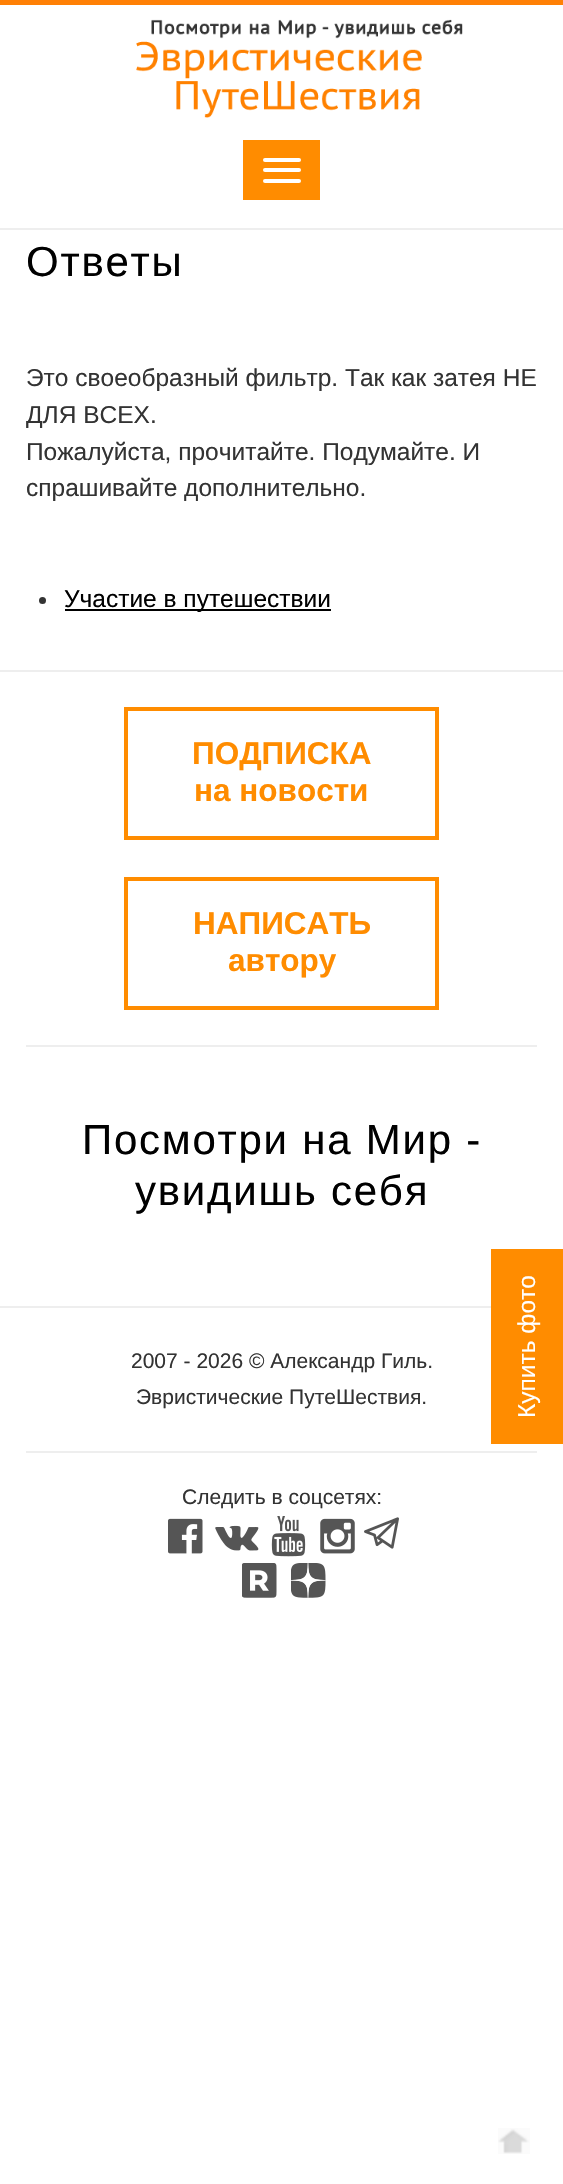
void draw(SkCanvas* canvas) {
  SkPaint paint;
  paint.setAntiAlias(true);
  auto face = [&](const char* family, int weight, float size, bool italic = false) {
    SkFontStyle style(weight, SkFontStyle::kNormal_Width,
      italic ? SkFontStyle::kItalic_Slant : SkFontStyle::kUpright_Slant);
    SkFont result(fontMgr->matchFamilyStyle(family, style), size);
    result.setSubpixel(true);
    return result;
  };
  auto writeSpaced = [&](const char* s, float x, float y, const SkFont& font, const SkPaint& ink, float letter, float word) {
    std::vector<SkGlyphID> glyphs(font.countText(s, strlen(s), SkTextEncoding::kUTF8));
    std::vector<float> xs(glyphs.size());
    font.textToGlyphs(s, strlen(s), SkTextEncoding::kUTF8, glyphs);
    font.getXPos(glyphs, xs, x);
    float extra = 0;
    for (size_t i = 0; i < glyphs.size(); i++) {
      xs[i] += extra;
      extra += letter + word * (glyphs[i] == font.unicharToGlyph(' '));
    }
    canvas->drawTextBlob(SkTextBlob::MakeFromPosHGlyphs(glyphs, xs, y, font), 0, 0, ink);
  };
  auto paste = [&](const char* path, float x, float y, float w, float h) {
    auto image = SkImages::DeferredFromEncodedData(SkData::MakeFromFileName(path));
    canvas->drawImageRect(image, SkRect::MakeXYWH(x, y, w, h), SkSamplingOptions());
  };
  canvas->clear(0xffffffff);
  paint.setColor(0xffff8005);
  canvas->drawRect(SkRect::MakeXYWH(0, 0, 563, 5), paint);
  paint.setColor(0xffeeeeee);
  canvas->drawRect(SkRect::MakeXYWH(0, 228, 563, 2), paint);
  paste("img/1.png", 136, 19, 327, 99);
  paint.setColor(0xffff8c00);
  canvas->drawRect(SkRect::MakeXYWH(243, 140, 77, 60), paint);
  paint.setColor(0xffffffff);
  canvas->drawRoundRect(SkRect::MakeXYWH(263, 158, 38, 4), 2, 2, paint);
  canvas->drawRoundRect(SkRect::MakeXYWH(263, 168, 38, 4), 2, 2, paint);
  canvas->drawRoundRect(SkRect::MakeXYWH(263, 179, 38, 4), 2, 2, paint);
  paint.setColor(0xff333333);
  canvas->drawCircle(42.5f, 600.5f, 3.5f, paint);
  paint.setColor(0xff000000);
  canvas->drawRect(SkRect::MakeXYWH(65, 609, 266, 2), paint);
  paint.setColor(0xffeeeeee);
  canvas->drawRect(SkRect::MakeXYWH(0, 670, 563, 2), paint);
  paint.setStroke(true);
  paint.setStrokeWidth(4);
  paint.setColor(0xffff8c00);
  canvas->drawRect(SkRect::MakeXYWH(126, 709, 311, 129), paint);
  canvas->drawRect(SkRect::MakeXYWH(126, 879, 311, 129), paint);
  paint.setStroke(false);
  {
    const struct { float x, y, w, h; SkColor color; } items[] = {
      {26, 1045, 511, 2, 0xffeeeeee},
      {491, 1249, 72, 195, 0xffff8c00},
      {0, 1306, 491, 2, 0xffeeeeee},
      {26, 1451, 511, 2, 0xffeeeeee},
    };
    for (auto [x, y, w, h, color] : items) {
      paint.setColor(color);
      canvas->drawRect(SkRect::MakeXYWH(x, y, w, h), paint);
    }
  }
  paste("img/2.png", 168, 1518, 35, 36);
  paste("img/3.png", 215, 1525, 44, 26);
  paste("img/4.png", 271, 1516, 35, 41);
  paste("img/5.png", 320, 1518, 35, 36);
  paste("img/6.png", 364, 1517, 35, 32);
  paste("img/7.png", 242, 1563, 35, 35);
  paste("img/8.png", 291, 1563, 35, 35);
  paste("img/9.png", 498, 2128, 32, 26);
  auto f0 = face("Liberation Sans", 400, 42);
  paint.setColor(0xff000000);
  writeSpaced("Ответы", 26, 276, f0, paint, 1.75f, 0);
  auto f1 = face("Liberation Sans", 400, 24.5f);
  paint.setColor(0xff333333);
  {
    const struct { const char* s; float x, y; } items[] = {
      {"Это своеобразный фильтр. Так как затея НЕ", 26, 386},
      {"ДЛЯ ВСЕХ.", 26, 423},
      {"Пожалуйста, прочитайте. Подумайте. И", 26, 460},
      {"спрашивайте дополнительно.", 26, 496},
    };
    for (auto [s, x, y] : items) {
      canvas->drawString(s, x, y, f1, paint);
    }
  }
  paint.setColor(0xff000000);
  canvas->drawString("Участие в путешествии", 64, 607, f1, paint);
  auto f2 = face("Liberation Sans", 700, 31.5f);
  paint.setColor(0xffff8c00);
  {
    const struct { const char* s; float x, y; } items[] = {
      {"ПОДПИСКА", 192, 764},
      {"на новости", 194, 801},
      {"НАПИСАТЬ", 193, 934},
      {"автору", 228, 971},
    };
    for (auto [s, x, y] : items) {
      canvas->drawString(s, x, y, f2, paint);
    }
  }
  paint.setColor(0xff000000);
  writeSpaced("Посмотри на Мир -", 82, 1154, f0, paint, 1.75f, 0);
  writeSpaced("увидишь себя", 135, 1205, f0, paint, 1.75f, 0);
  paint.setColor(0xffffffff);
  canvas->save();
  canvas->rotate(-90, 535, 1418);
  canvas->drawString("Купить фото", 535, 1418, f1, paint);
  canvas->restore();
  auto f3 = face("Liberation Sans", 400, 21);
  paint.setColor(0xff333333);
  {
    const struct { const char* s; float x, y; } items[] = {
      {"2007 - 2026 © Александр Гиль.", 131, 1368},
      {"Эвристические ПутеШествия.", 136, 1404},
      {"Следить в соцсетях:", 182, 1504},
    };
    for (auto [s, x, y] : items) {
      canvas->drawString(s, x, y, f3, paint);
    }
  }
}
